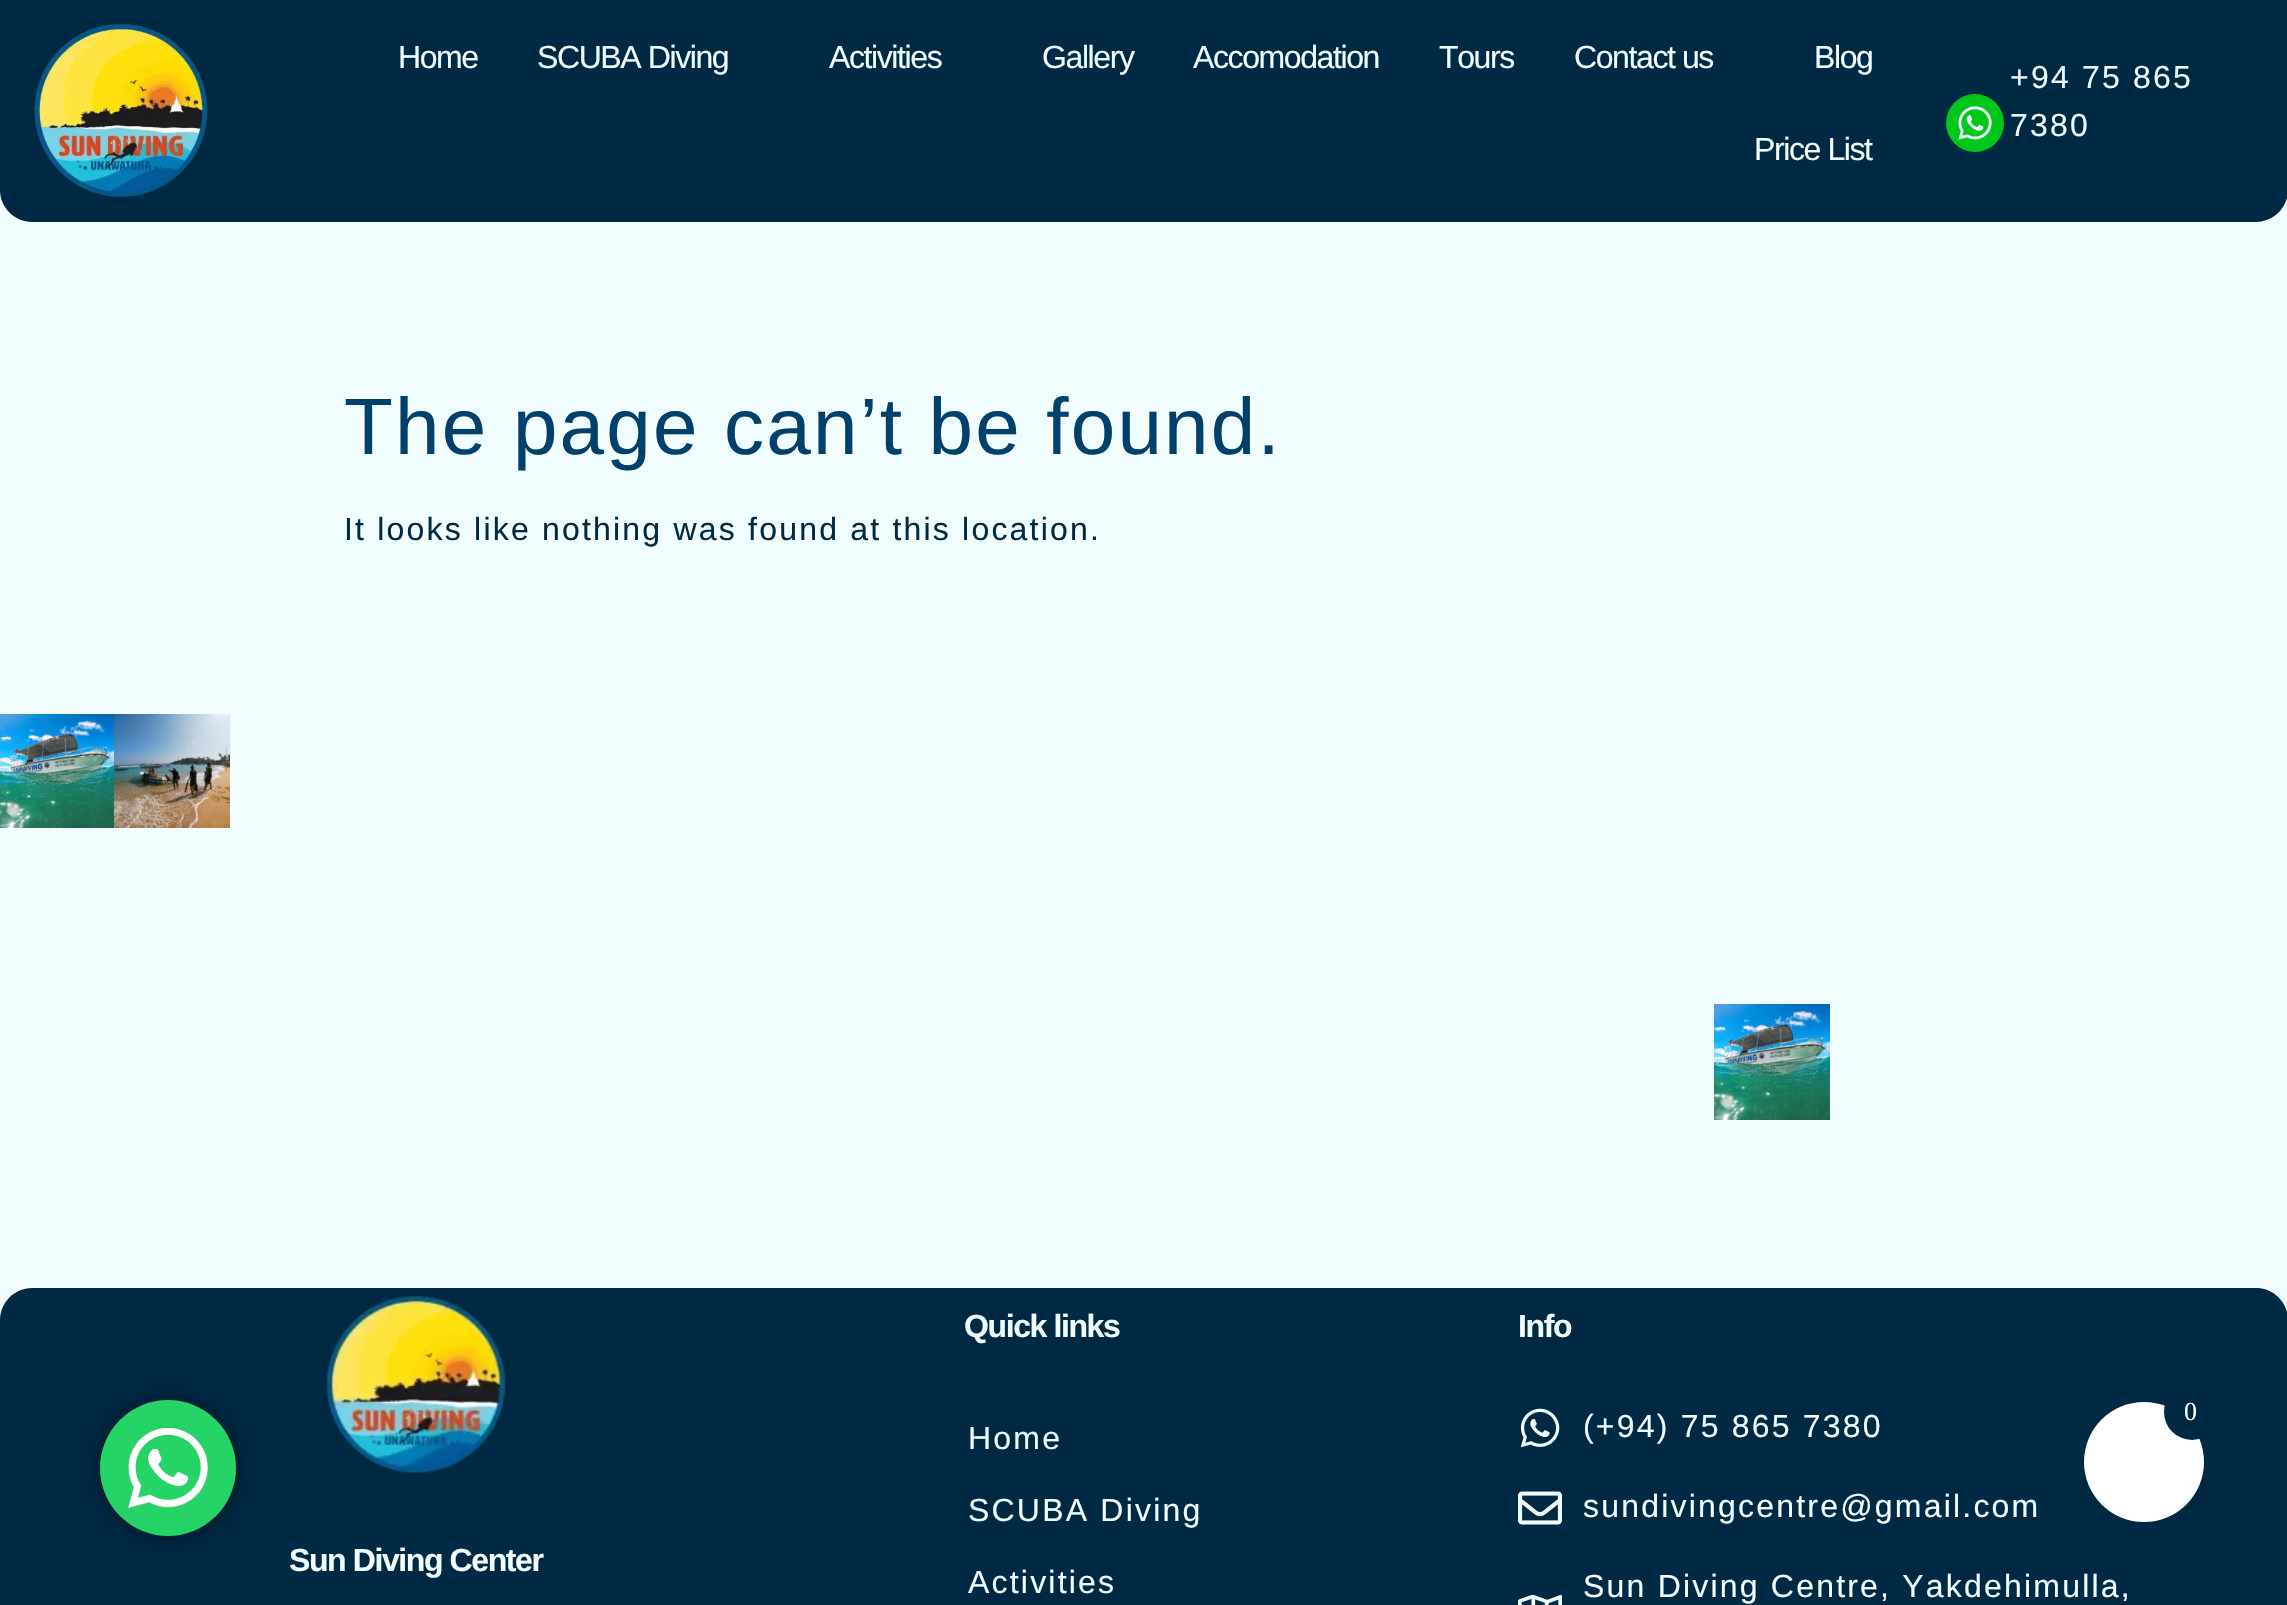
void draw(SkCanvas* canvas) {
  SkPaint paint;
  paint.setAntiAlias(true);
  auto face = [&](const char* family, int weight, float size, bool italic = false) {
    SkFontStyle style(weight, SkFontStyle::kNormal_Width,
      italic ? SkFontStyle::kItalic_Slant : SkFontStyle::kUpright_Slant);
    SkFont result(fontMgr->matchFamilyStyle(family, style), size);
    result.setSubpixel(true);
    return result;
  };
  auto writeSpaced = [&](const char* s, float x, float y, const SkFont& font, const SkPaint& ink, float letter, float word) {
    std::vector<SkGlyphID> glyphs(font.countText(s, strlen(s), SkTextEncoding::kUTF8));
    std::vector<float> xs(glyphs.size());
    font.textToGlyphs(s, strlen(s), SkTextEncoding::kUTF8, glyphs);
    font.getXPos(glyphs, xs, x);
    float extra = 0;
    for (size_t i = 0; i < glyphs.size(); i++) {
      xs[i] += extra;
      extra += letter + word * (glyphs[i] == font.unicharToGlyph(' '));
    }
    canvas->drawTextBlob(SkTextBlob::MakeFromPosHGlyphs(glyphs, xs, y, font), 0, 0, ink);
  };
  auto paste = [&](const char* path, float x, float y, float w, float h) {
    auto image = SkImages::DeferredFromEncodedData(SkData::MakeFromFileName(path));
    canvas->drawImageRect(image, SkRect::MakeXYWH(x, y, w, h), SkSamplingOptions());
  };
  auto shape = [&](const char* data, bool evenOdd = false) {
    SkPath result = *SkParsePath::FromSVGString(data);
    if (evenOdd) result.setFillType(SkPathFillType::kEvenOdd);
    return result;
  };
  canvas->clear(0xfff1fcff);
  paint.setColor(0xff002944);
  canvas->drawPath(shape("M32 1288H2256C2273.5 1288 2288 1302.5 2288 1320V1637H0V1320C0 1302.5 14.5 1288 32 1288Z"), paint);
  paint.setColor(0x80000000);
  paint.setMaskFilter(SkMaskFilter::MakeBlur(kNormal_SkBlurStyle, 11));
  canvas->drawRoundRect(SkRect::MakeXYWH(100, 1400, 136, 136), 68, 68, paint);
  paint.setMaskFilter(nullptr);
  paint.setColor(0xff25d366);
  canvas->drawCircle(168, 1468, 68, paint);
  paste("img/1.png", 128, 1428, 80, 80);
  paint.setColor(0xff002944);
  canvas->drawPath(shape("M0 0H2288V190C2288 207.5 2273.5 222 2256 222H32C14.5 222 0 207.5 0 190Z"), paint);
  paste("img/2.png", 34, 24, 174, 173);
  paint.setColor(0xff02c71b);
  canvas->drawCircle(1975, 123, 29, paint);
  paste("img/3.png", 1958, 106, 34, 34);
  paste("img/4.png", 0, 714, 114, 114);
  paste("img/5.png", 114, 714, 116, 114);
  paste("img/6.png", 1714, 1004, 116, 116);
  paste("img/7.png", 326, 1295, 180, 179);
  paste("img/8.png", 1520, 1408, 40, 40);
  paste("img/9.png", 1518, 1491, 44, 34);
  paste("img/10.png", 1518, 1594, 44, 11);
  paint.setColor(0xffffffff);
  canvas->drawCircle(2144, 1462, 60, paint);
  paint.setColor(0xff002944);
  canvas->drawCircle(2192, 1412, 28, paint);
  auto f0 = face("Liberation Sans", 400, 32);
  paint.setColor(0xfff1fcff);
  {
    const struct { const char* s; float x, y; } items[] = {
      {"Home", 398, 68},
      {"SCUBA Diving", 537, 68},
      {"Activities", 829, 68},
      {"Gallery", 1042, 68},
      {"Accomodation", 1193, 68},
      {"Tours", 1439, 68},
      {"Contact us", 1574, 68},
      {"Blog", 1814, 68},
      {"Price List", 1754, 160},
    };
    for (auto [s, x, y] : items) {
      writeSpaced(s, x, y, f0, paint, -1.4f, 0);
    }
  }
  writeSpaced("+94 75 865", 2010, 88, f0, paint, 2.2f, 0);
  writeSpaced("7380", 2010, 136, f0, paint, 2.2f, 0);
  auto f1 = face("Liberation Sans", 400, 80);
  paint.setColor(0xff00406b);
  writeSpaced("The page can’t be found.", 344, 454, f1, paint, 2.2f, 0);
  paint.setColor(0xff002944);
  writeSpaced("It looks like nothing was found at this location.", 344, 540, f0, paint, 2.2f, 0);
  auto f2 = face("Liberation Sans", 700, 32);
  paint.setColor(0xfff1fcff);
  writeSpaced("Sun Diving Center", 289, 1571, f2, paint, -1.4f, 0);
  writeSpaced("Quick links", 964, 1337, f2, paint, -1.4f, 0);
  {
    const struct { const char* s; float x, y; } items[] = {
      {"Home", 968, 1449},
      {"SCUBA Diving", 968, 1521},
      {"Activities", 968, 1593},
    };
    for (auto [s, x, y] : items) {
      writeSpaced(s, x, y, f0, paint, 2.2f, 0);
    }
  }
  writeSpaced("Info", 1518, 1337, f2, paint, -1.4f, 0);
  {
    const struct { const char* s; float x, y; } items[] = {
      {"(+94) 75 865 7380", 1583, 1437},
      {"sundivingcentre@gmail.com", 1583, 1517},
      {"Sun Diving Centre, Yakdehimulla,", 1583, 1597},
    };
    for (auto [s, x, y] : items) {
      writeSpaced(s, x, y, f0, paint, 2.2f, 0);
    }
  }
  auto f3 = face("Liberation Serif", 400, 26);
  paint.setColor(0xffffffff);
  writeSpaced("0", 2184, 1420, f3, paint, 2.2f, 0);
}
